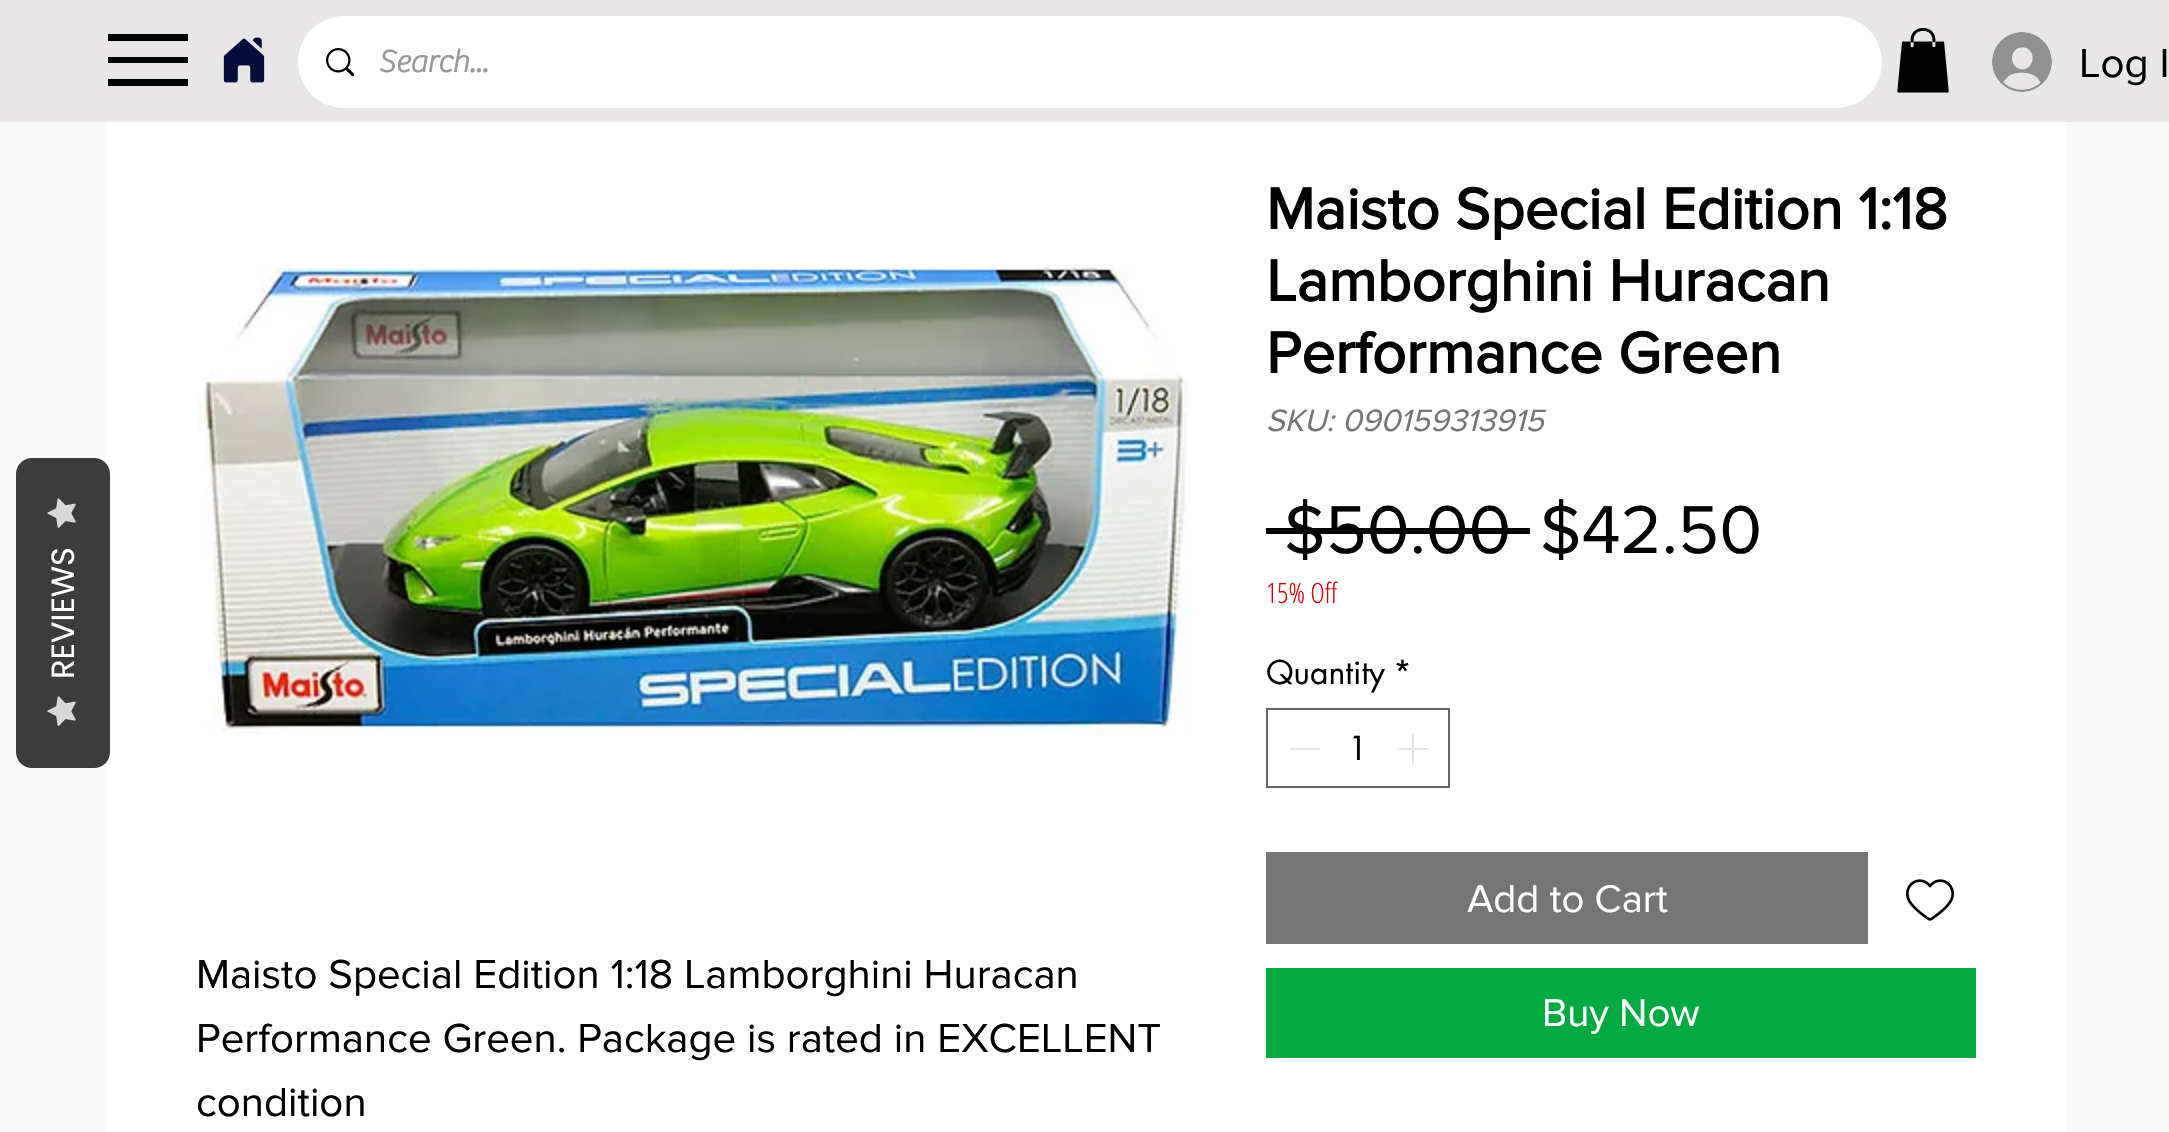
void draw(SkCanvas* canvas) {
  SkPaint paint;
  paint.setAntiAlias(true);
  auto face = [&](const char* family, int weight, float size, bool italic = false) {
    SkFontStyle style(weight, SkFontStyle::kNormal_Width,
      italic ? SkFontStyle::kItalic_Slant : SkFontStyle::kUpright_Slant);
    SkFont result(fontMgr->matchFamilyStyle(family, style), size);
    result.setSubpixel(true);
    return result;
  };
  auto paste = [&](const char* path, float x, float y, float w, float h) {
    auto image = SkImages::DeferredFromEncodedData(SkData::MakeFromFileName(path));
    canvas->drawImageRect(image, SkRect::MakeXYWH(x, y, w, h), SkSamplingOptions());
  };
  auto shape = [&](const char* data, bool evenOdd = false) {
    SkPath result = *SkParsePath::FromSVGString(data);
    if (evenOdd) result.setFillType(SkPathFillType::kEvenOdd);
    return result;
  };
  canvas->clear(0xfff9f9f9);
  paint.setColor(0xffffffff);
  canvas->drawRect(SkRect::MakeXYWH(106, 122, 1960, 1010), paint);
  paint.setColor(0xff3c3c3c);
  canvas->drawPath(shape("M16 752V474C16 465 23 458 32 458H94C103 458 110 465 110 474V752C110 761 103 768 94 768H32C23 768 16 761 16 752Z"), paint);
  paste("img/1.png", 47, 498, 29, 30);
  paste("img/1.png", 47, 696, 29, 30);
  {
    const struct { float x, y, w, h; SkColor color; } items[] = {
      {0, 0, 2169, 122, 0xffe8e6e6},
      {108, 79, 80, 7, 0xff000000},
      {108, 34, 80, 7, 0xff000000},
      {108, 57, 80, 6, 0xff000000},
    };
    for (auto [x, y, w, h, color] : items) {
      paint.setColor(color);
      canvas->drawRect(SkRect::MakeXYWH(x, y, w, h), paint);
    }
  }
  paste("img/2.png", 223, 37, 42, 46);
  paint.setColor(0xffffffff);
  canvas->drawRoundRect(SkRect::MakeXYWH(298, 16, 1584, 92), 46, 46, paint);
  paste("img/3.png", 326, 48, 28, 28);
  paste("img/4.png", 1897, 28, 52, 65);
  paste("img/5.png", 1992, 32, 60, 60);
  paste("img/6.png", 198, 264, 994, 472);
  paint.setColor(0xff000000);
  canvas->drawRect(SkRect::MakeXYWH(1266, 528, 264, 6), paint);
  paint.setStroke(true);
  paint.setStrokeWidth(2);
  paint.setColor(0xff666666);
  canvas->drawRect(SkRect::MakeXYWH(1267, 709, 182, 78), paint);
  paint.setStroke(false);
  paint.setColor(0xffe3e3e3);
  canvas->drawRect(SkRect::MakeXYWH(1290, 748, 30, 2), paint);
  paste("img/7.png", 1398, 734, 30, 30);
  paint.setColor(0xff757575);
  canvas->drawRect(SkRect::MakeXYWH(1266, 852, 602, 92), paint);
  paste("img/8.png", 1906, 879, 48, 42);
  paint.setColor(0xff03aa42);
  canvas->drawRect(SkRect::MakeXYWH(1266, 968, 710, 90), paint);
  auto f0 = face("Poppins", 400, 32);
  paint.setColor(0xffffffff);
  canvas->save();
  canvas->rotate(-90, 74, 679);
  canvas->drawString("REVIEWS", 74, 679, f0, paint);
  canvas->restore();
  auto f1 = face("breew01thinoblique", 700, 32);
  paint.setColor(0xff999999);
  canvas->drawString("Search...", 378, 72, f1, paint);
  auto f2 = face("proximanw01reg", 400, 42);
  paint.setColor(0xff000000);
  {
    const struct { const char* s; float x, y; } items[] = {
      {"Log I", 2079, 77},
      {"Maisto Special Edition 1:18 Lamborghini Huracan", 196, 988},
      {"Performance Green. Package is rated in EXCELLENT", 196, 1052},
      {"condition", 196, 1116},
    };
    for (auto [s, x, y] : items) {
      canvas->drawString(s, x, y, f2, paint);
    }
  }
  auto f3 = face("proximanw01reg", 700, 60);
  {
    const struct { const char* s; float x, y; } items[] = {
      {"Maisto Special Edition 1:18", 1266, 229},
      {"Lamborghini Huracan", 1266, 301},
      {"Performance Green", 1266, 373},
    };
    for (auto [s, x, y] : items) {
      canvas->drawString(s, x, y, f3, paint);
    }
  }
  auto f4 = face("proximanw01reg", 400, 32, true);
  paint.setColor(0xff757575);
  canvas->drawString("SKU: 090159313915", 1266, 431, f4, paint);
  auto f5 = face("proximanw01reg", 400, 70);
  paint.setColor(0xff000000);
  canvas->drawString("$50.00", 1284, 553, f5, paint);
  canvas->drawString("$42.50", 1540, 553, f5, paint);
  auto f6 = face("Open Sans Condensed", 300, 28);
  paint.setColor(0xffd1000a);
  canvas->drawString("15% Off", 1266, 603, f6, paint);
  auto f7 = face("futura", 400, 32);
  paint.setColor(0xff000000);
  {
    const struct { const char* s; float x, y; } items[] = {
      {"Quantity", 1266, 684},
      {"*", 1393, 684},
      {"1", 1348, 760},
    };
    for (auto [s, x, y] : items) {
      canvas->drawString(s, x, y, f7, paint);
    }
  }
  auto f8 = face("proximanw01reg", 400, 40);
  paint.setColor(0xffffffff);
  canvas->drawString("Add to Cart", 1467, 912, f8, paint);
  canvas->drawString("Buy Now", 1542, 1026, f8, paint);
}
